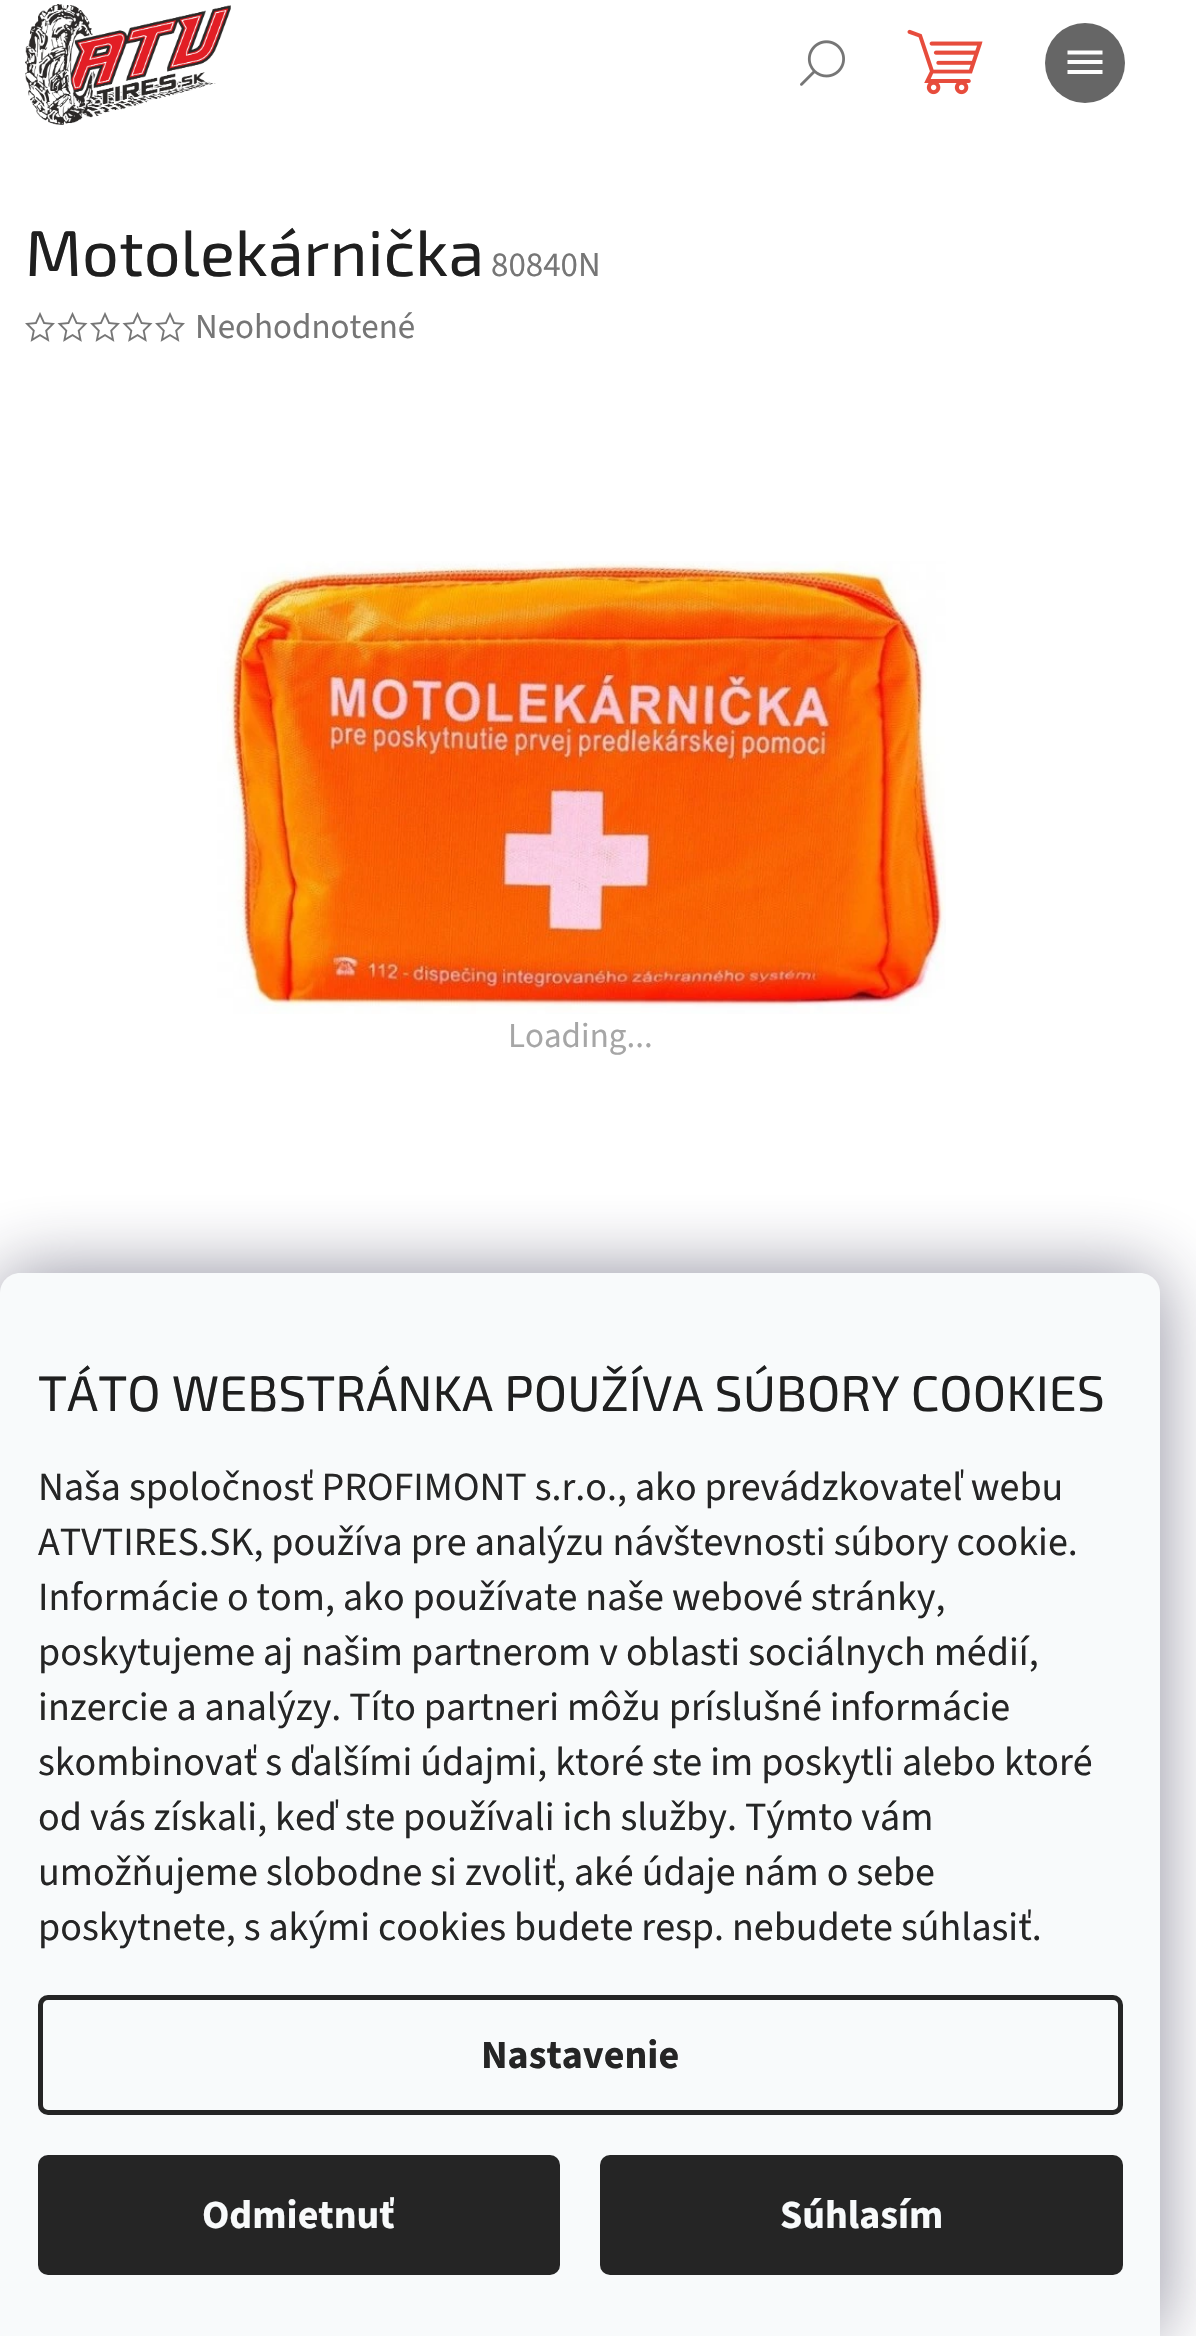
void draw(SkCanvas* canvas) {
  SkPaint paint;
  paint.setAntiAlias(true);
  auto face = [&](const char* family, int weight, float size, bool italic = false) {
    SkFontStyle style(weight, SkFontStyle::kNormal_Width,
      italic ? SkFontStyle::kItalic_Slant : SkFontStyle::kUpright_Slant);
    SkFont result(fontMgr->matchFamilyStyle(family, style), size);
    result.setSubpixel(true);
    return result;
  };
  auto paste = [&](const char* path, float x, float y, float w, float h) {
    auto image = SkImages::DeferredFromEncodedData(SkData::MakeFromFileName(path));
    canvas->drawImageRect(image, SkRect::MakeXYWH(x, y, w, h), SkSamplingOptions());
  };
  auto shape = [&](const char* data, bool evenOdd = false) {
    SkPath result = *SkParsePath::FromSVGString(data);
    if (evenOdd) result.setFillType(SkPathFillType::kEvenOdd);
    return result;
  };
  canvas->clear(0xffffffff);
  paste("img/1.png", 25, 4, 206, 121);
  paste("img/2.png", 907, 29, 76, 66);
  paste("img/3.png", 800, 40, 45, 46);
  paint.setColor(0xff666666);
  canvas->drawCircle(1085, 63, 40, paint);
  paint.setColor(0xffffffff);
  canvas->drawPath(shape("M1067.5 74H1102.5V70H1067.5ZM1067.5 64H1102.5V60H1067.5ZM1067.5 50.5V54.5H1102.5V50.5Z"), paint);
  paste("img/4.png", 25, 312, 30, 30);
  paste("img/5.png", 57, 312, 31, 30);
  paste("img/4.png", 90, 312, 30, 30);
  paste("img/5.png", 122, 312, 31, 30);
  paste("img/4.png", 155, 312, 30, 30);
  paste("img/6.png", 217, 561, 729, 453);
  paint.setColor(0x801b1939);
  paint.setMaskFilter(SkMaskFilter::MakeBlur(kNormal_SkBlurStyle, 37.5f));
  canvas->drawRoundRect(SkRect::MakeXYWH(0, 1273, 1160, 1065), 20, 20, paint);
  paint.setMaskFilter(nullptr);
  paint.setColor(0xfff8fafb);
  canvas->drawPath(shape("M20 1273H1140C1151 1273 1160 1282 1160 1293V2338H0V1293C0 1282 9 1273 20 1273Z"), paint);
  paint.setStroke(true);
  paint.setStrokeWidth(5);
  paint.setColor(0xff252525);
  canvas->drawRoundRect(SkRect::MakeXYWH(40.5f, 1997.5f, 1080, 115), 7.5f, 7.5f, paint);
  paint.setStroke(false);
  canvas->drawRoundRect(SkRect::MakeXYWH(38, 2155, 522, 120), 10, 10, paint);
  canvas->drawRoundRect(SkRect::MakeXYWH(600, 2155, 523, 120), 10, 10, paint);
  auto f0 = face("Exo 2", 400, 65);
  paint.setColor(0xff1f1f1f);
  canvas->drawString("Motolekárnička", 25, 276, f0, paint);
  auto f1 = face("Source Sans 3", 400, 35);
  paint.setColor(0xff767676);
  canvas->drawString("80840N", 491, 276, f1, paint);
  canvas->drawString("Neohodnotené", 195, 338, f1, paint);
  paint.setColor(0xffa6a6a6);
  canvas->drawString("Loading...", 508, 1047, f1, paint);
  auto f2 = face("Exo 2", 400, 50);
  paint.setColor(0xff1f1f1f);
  canvas->drawString("TÁTO WEBSTRÁNKA POUŽÍVA SÚBORY COOKIES", 38, 1411, f2, paint);
  auto f3 = face("Source Sans 3", 400, 40);
  paint.setColor(0xff252525);
  {
    const struct { const char* s; float x, y; } items[] = {
      {"Naša spoločnosť PROFIMONT s.r.o., ako prevádzkovateľ webu", 38, 1500},
      {"ATVTIRES.SK, používa pre analýzu návštevnosti súbory cookie.", 38, 1555},
      {"Informácie o tom, ako používate naše webové stránky,", 38, 1610},
      {"poskytujeme aj našim partnerom v oblasti sociálnych médií,", 38, 1665},
      {"inzercie a analýzy. Títo partneri môžu príslušné informácie", 38, 1720},
      {"skombinovať s ďalšími údajmi, ktoré ste im poskytli alebo ktoré", 38, 1775},
      {"od vás získali, keď ste používali ich služby. Týmto vám", 38, 1830},
      {"umožňujeme slobodne si zvoliť, aké údaje nám o sebe", 38, 1885},
      {"poskytnete, s akými cookies budete resp. nebudete súhlasiť.", 38, 1940},
    };
    for (auto [s, x, y] : items) {
      canvas->drawString(s, x, y, f3, paint);
    }
  }
  auto f4 = face("Source Sans 3", 700, 40);
  canvas->drawString("Nastavenie", 481, 2068, f4, paint);
  paint.setColor(0xfff8fafb);
  canvas->drawString("Odmietnuť", 202, 2228, f4, paint);
  canvas->drawString("Súhlasím", 780, 2228, f4, paint);
}
